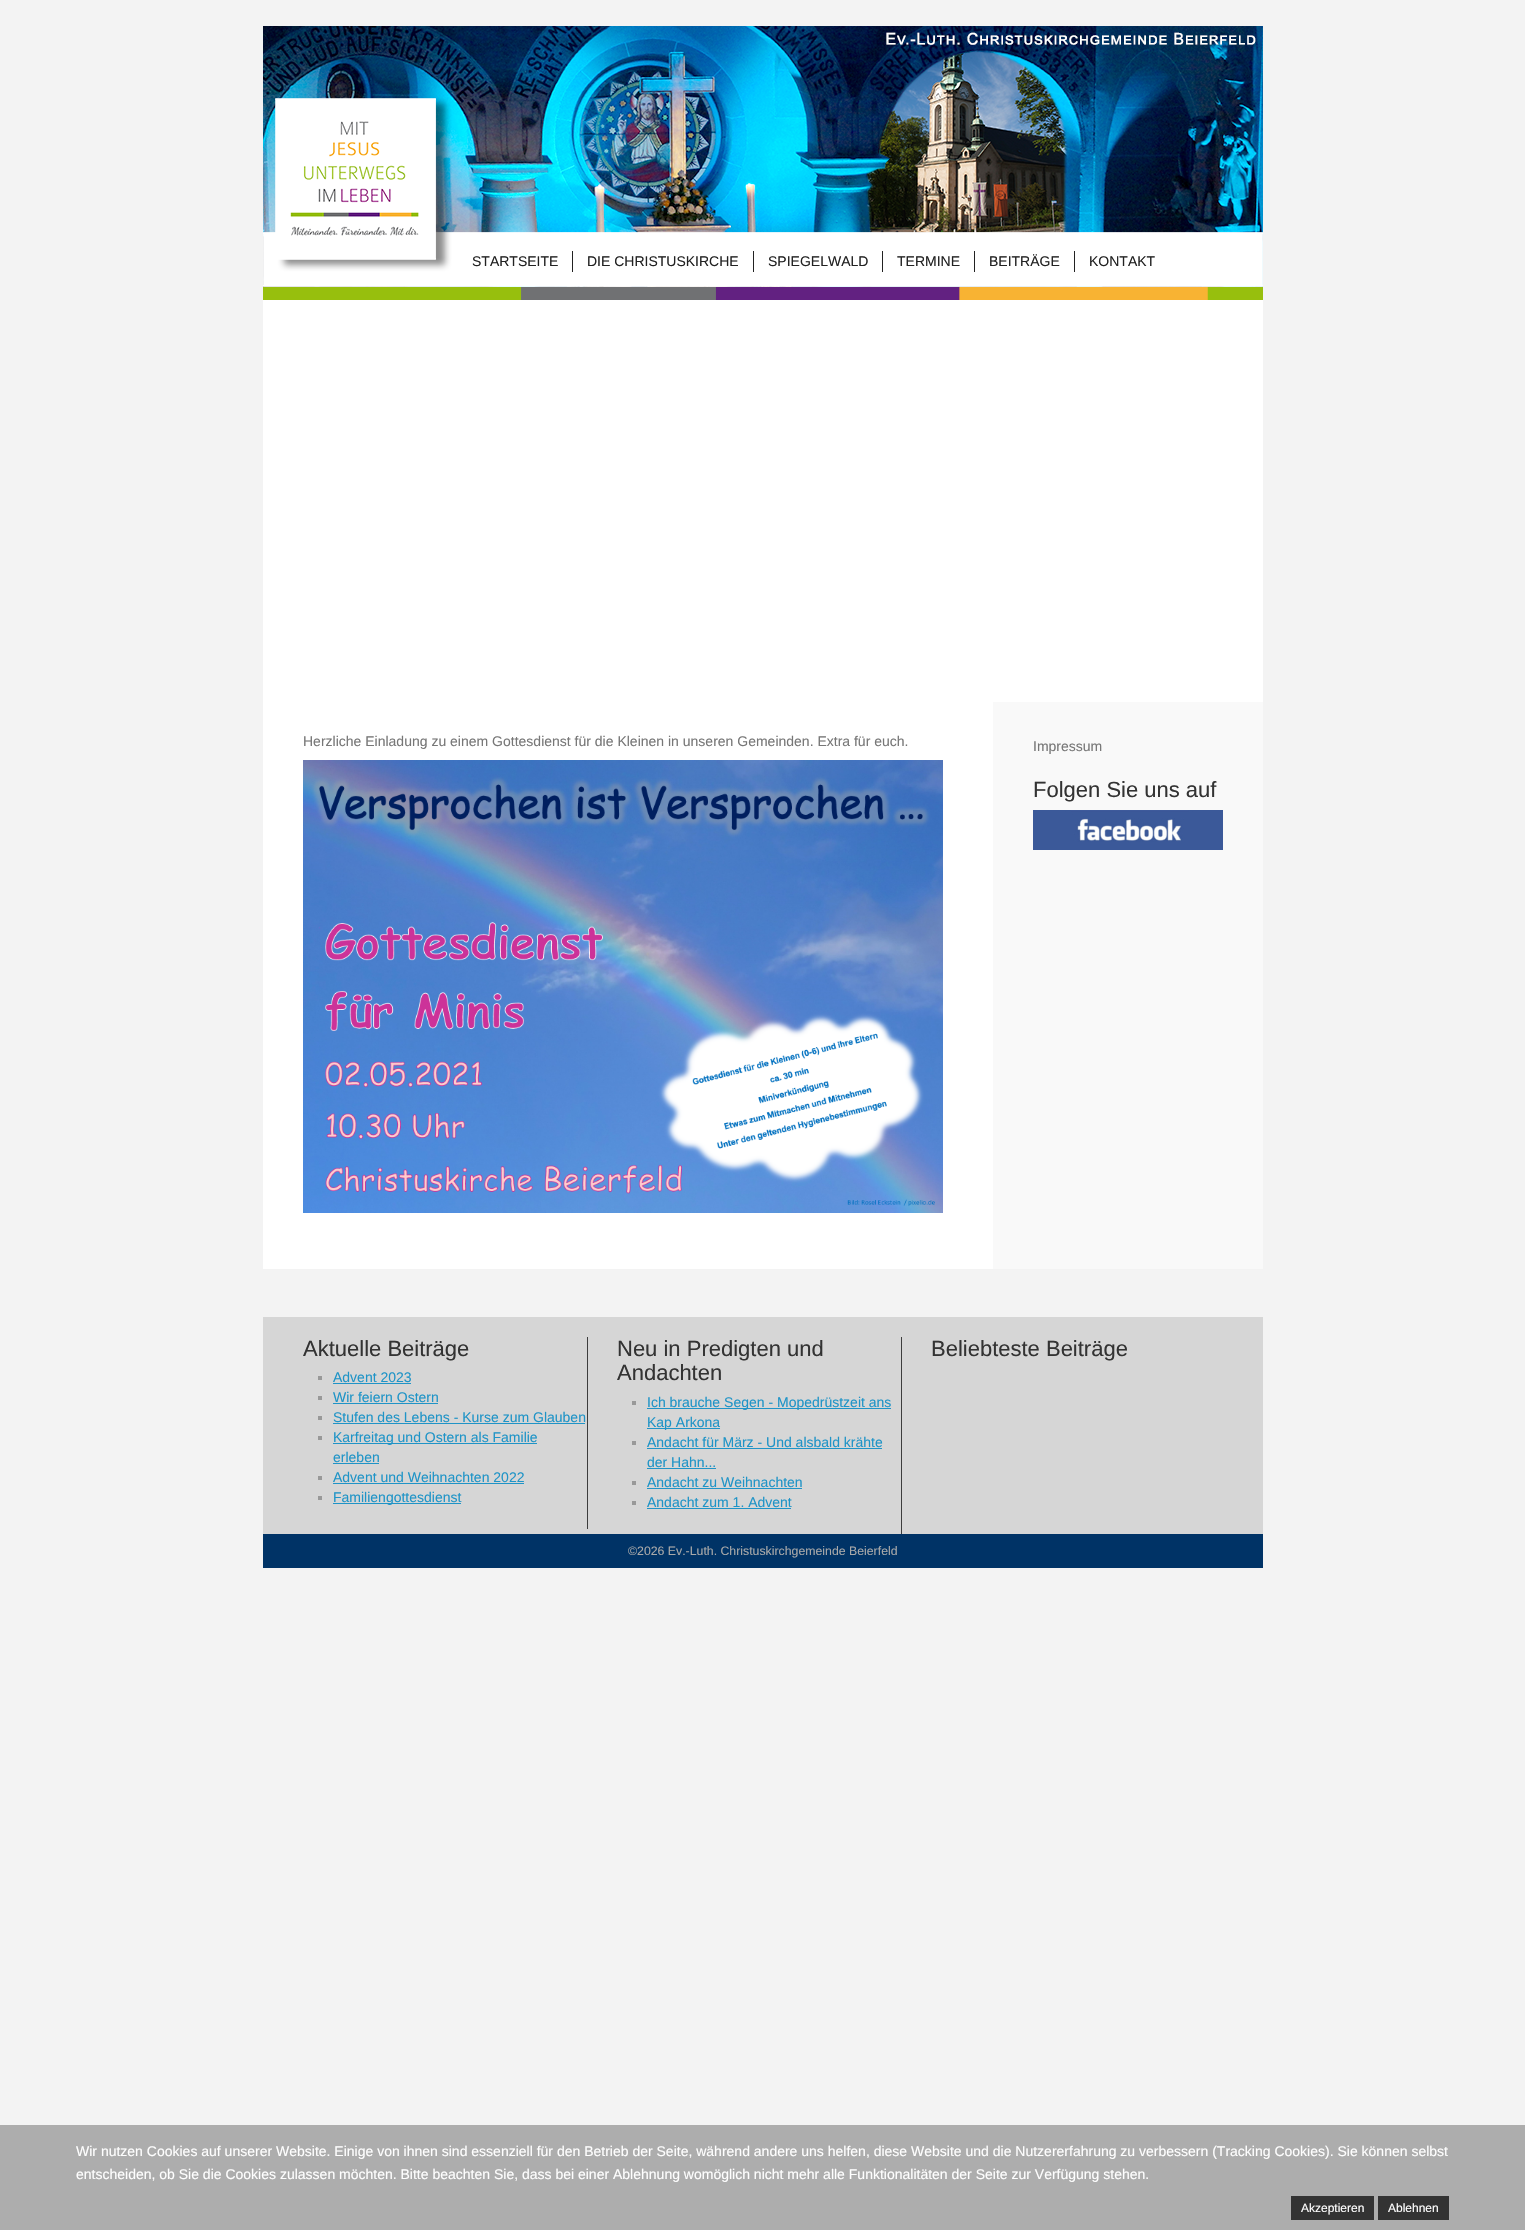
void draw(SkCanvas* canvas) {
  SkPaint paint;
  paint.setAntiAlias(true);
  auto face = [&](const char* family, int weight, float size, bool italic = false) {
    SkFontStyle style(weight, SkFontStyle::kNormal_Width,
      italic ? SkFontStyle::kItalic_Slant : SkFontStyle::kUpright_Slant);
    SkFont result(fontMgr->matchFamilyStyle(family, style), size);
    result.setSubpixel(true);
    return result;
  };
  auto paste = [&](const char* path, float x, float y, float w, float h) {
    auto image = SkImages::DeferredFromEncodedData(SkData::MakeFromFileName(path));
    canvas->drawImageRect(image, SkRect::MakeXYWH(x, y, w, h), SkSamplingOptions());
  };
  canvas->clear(0xfff3f3f3);
  paste("img/1.png", 263, 26, 1000, 274);
  {
    const struct { float x, y, w, h; SkColor color; } items[] = {
      {572, 251, 1, 21, 0xff222222},
      {753, 251, 1, 21, 0xff222222},
      {882, 251, 1, 21, 0xff222222},
      {974, 251, 1, 21, 0xff222222},
      {1074, 251, 1, 21, 0xff222222},
      {263, 300, 1000, 402, 0xffffffff},
      {993, 702, 270, 567, 0xfff9f9f9},
      {263, 702, 730, 567, 0xffffffff},
    };
    for (auto [x, y, w, h, color] : items) {
      paint.setColor(color);
      canvas->drawRect(SkRect::MakeXYWH(x, y, w, h), paint);
    }
  }
  paste("img/2.png", 303, 760, 640, 453);
  paste("img/3.png", 1033, 810, 190, 40);
  {
    const struct { float x, y, w, h; SkColor color; } items[] = {
      {263, 1317, 1000, 217, 0xffd6d6d6},
      {587, 1337, 1, 192, 0xff3d3d3d},
      {318, 1376, 4, 4, 0xff999999},
      {333, 1383, 78, 1, 0xff1f94c7},
      {318, 1396, 4, 4, 0xff999999},
      {333, 1403, 105, 1, 0xff1f94c7},
      {318, 1416, 4, 4, 0xff999999},
      {333, 1423, 252, 1, 0xff1f94c7},
      {318, 1436, 4, 4, 0xff999999},
      {333, 1443, 204, 1, 0xff1f94c7},
      {333, 1463, 46, 1, 0xff1f94c7},
      {318, 1476, 4, 4, 0xff999999},
      {333, 1483, 191, 1, 0xff1f94c7},
      {318, 1496, 4, 4, 0xff999999},
      {333, 1503, 128, 1, 0xff1f94c7},
      {901, 1337, 1, 197, 0xff3d3d3d},
      {632, 1401, 4, 4, 0xff999999},
      {647, 1408, 244, 1, 0xff1f94c7},
      {647, 1428, 73, 1, 0xff1f94c7},
      {632, 1441, 4, 4, 0xff999999},
      {647, 1448, 235, 1, 0xff1f94c7},
      {647, 1468, 69, 1, 0xff1f94c7},
      {632, 1481, 4, 4, 0xff999999},
      {647, 1488, 155, 1, 0xff1f94c7},
      {632, 1501, 4, 4, 0xff999999},
      {647, 1508, 144, 1, 0xff1f94c7},
      {263, 1534, 1000, 34, 0xff003366},
      {0, 2125, 1525, 105, 0xffadadad},
      {1291, 2196, 83, 24, 0xff333333},
      {1378, 2196, 71, 24, 0xff333333},
    };
    for (auto [x, y, w, h, color] : items) {
      paint.setColor(color);
      canvas->drawRect(SkRect::MakeXYWH(x, y, w, h), paint);
    }
  }
  auto f0 = face("Liberation Sans", 400, 14);
  paint.setColor(0xff222222);
  {
    const struct { const char* s; float x, y; } items[] = {
      {"STARTSEITE", 472, 266},
      {"DIE CHRISTUSKIRCHE", 587, 266},
      {"SPIEGELWALD", 768, 266},
      {"TERMINE", 897, 266},
      {"BEITRÄGE", 989, 266},
      {"KONTAKT", 1089, 266},
    };
    for (auto [s, x, y] : items) {
      canvas->drawString(s, x, y, f0, paint);
    }
  }
  paint.setColor(0xff777777);
  canvas->drawString("Herzliche Einladung zu einem Gottesdienst für die Kleinen in unseren Gemeinden. Extra für euch.", 303, 746, f0, paint);
  canvas->drawString("Impressum", 1033, 751, f0, paint);
  auto f1 = face("Liberation Sans", 400, 22);
  paint.setColor(0xff333333);
  canvas->drawString("Folgen Sie uns auf", 1033, 797, f1, paint);
  canvas->drawString("Aktuelle Beiträge", 303, 1356, f1, paint);
  paint.setColor(0xff1f94c7);
  {
    const struct { const char* s; float x, y; } items[] = {
      {"Advent 2023", 333, 1382},
      {"Wir feiern Ostern", 333, 1402},
      {"Stufen des Lebens - Kurse zum Glauben", 333, 1422},
      {"Karfreitag und Ostern als Familie", 333, 1442},
      {"erleben", 333, 1462},
      {"Advent und Weihnachten 2022", 333, 1482},
      {"Familiengottesdienst", 333, 1502},
    };
    for (auto [s, x, y] : items) {
      canvas->drawString(s, x, y, f0, paint);
    }
  }
  paint.setColor(0xff333333);
  canvas->drawString("Neu in Predigten und", 617, 1356, f1, paint);
  canvas->drawString("Andachten", 617, 1380, f1, paint);
  paint.setColor(0xff1f94c7);
  {
    const struct { const char* s; float x, y; } items[] = {
      {"Ich brauche Segen - Mopedrüstzeit ans", 647, 1407},
      {"Kap Arkona", 647, 1427},
      {"Andacht für März - Und alsbald krähte", 647, 1447},
      {"der Hahn...", 647, 1467},
      {"Andacht zu Weihnachten", 647, 1487},
      {"Andacht zum 1. Advent", 647, 1507},
    };
    for (auto [s, x, y] : items) {
      canvas->drawString(s, x, y, f0, paint);
    }
  }
  paint.setColor(0xff333333);
  canvas->drawString("Beliebteste Beiträge", 931, 1356, f1, paint);
  auto f2 = face("Liberation Sans", 400, 12.3f);
  paint.setColor(0xffa9a9a9);
  canvas->drawString("©2026 Ev.-Luth. Christuskirchgemeinde Beierfeld", 628, 1555, f2, paint);
  paint.setColor(0xffffffff);
  canvas->drawString("Wir nutzen Cookies auf unserer Website. Einige von ihnen sind essenziell für den Betrieb der Seite, während andere uns helfen, diese Website und die Nutzererfahrung zu verbessern (Tracking Cookies). Sie können selbst", 76, 2156, f0, paint);
  canvas->drawString("entscheiden, ob Sie die Cookies zulassen möchten. Bitte beachten Sie, dass bei einer Ablehnung womöglich nicht mehr alle Funktionalitäten der Seite zur Verfügung stehen.", 76, 2179, f0, paint);
  auto f3 = face("Liberation Sans", 400, 12);
  canvas->drawString("Akzeptieren", 1301, 2212, f3, paint);
  canvas->drawString("Ablehnen", 1388, 2212, f3, paint);
}
